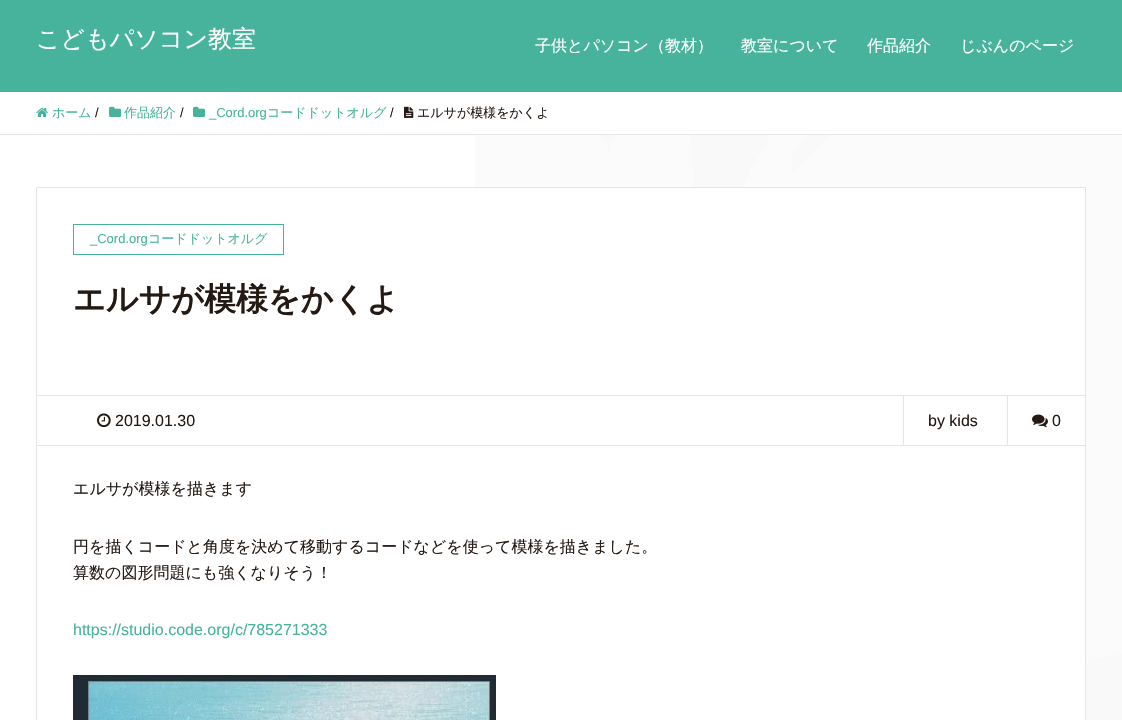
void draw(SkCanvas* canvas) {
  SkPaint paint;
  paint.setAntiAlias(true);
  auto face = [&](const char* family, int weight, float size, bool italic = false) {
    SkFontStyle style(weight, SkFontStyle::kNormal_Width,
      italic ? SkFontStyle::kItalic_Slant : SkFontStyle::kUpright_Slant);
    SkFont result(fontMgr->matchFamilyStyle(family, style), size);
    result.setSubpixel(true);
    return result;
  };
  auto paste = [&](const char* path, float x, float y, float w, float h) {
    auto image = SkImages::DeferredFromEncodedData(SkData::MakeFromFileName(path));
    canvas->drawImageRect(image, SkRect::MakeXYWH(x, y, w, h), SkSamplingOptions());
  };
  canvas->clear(0xffffffff);
  paste("img/1.png", 475, 135, 647, 585);
  paint.setColor(0xff47b39d);
  canvas->drawRect(SkRect::MakeXYWH(0, 0, 1122, 92), paint);
  paint.setColor(0xffe5e5e5);
  canvas->drawRect(SkRect::MakeXYWH(0, 134, 1122, 1), paint);
  paste("img/2.png", 36, 107, 12, 10);
  paste("img/3.png", 109, 106, 13, 11);
  paste("img/3.png", 193, 106, 13, 11);
  paste("img/4.png", 404, 106, 10, 12);
  paint.setColor(0xffffffff);
  canvas->drawRect(SkRect::MakeXYWH(475, 188, 610, 532), paint);
  paint.setStroke(true);
  paint.setStrokeWidth(1);
  paint.setColor(0xffe5e5e5);
  canvas->drawRect(SkRect::MakeXYWH(36.5f, 187.5f, 1049, 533), paint);
  paint.setStroke(false);
  canvas->drawRect(SkRect::MakeXYWH(37, 395, 1048, 1), paint);
  paint.setStroke(true);
  paint.setColor(0xff47b39d);
  canvas->drawRect(SkRect::MakeXYWH(73.5f, 224.5f, 210, 30), paint);
  paint.setStroke(false);
  paint.setColor(0xffe5e5e5);
  canvas->drawRect(SkRect::MakeXYWH(37, 445, 1048, 1), paint);
  paste("img/5.png", 97, 413, 14, 15);
  canvas->drawRect(SkRect::MakeXYWH(903, 396, 1, 49), paint);
  canvas->drawRect(SkRect::MakeXYWH(1007, 396, 1, 49), paint);
  paste("img/6.png", 1032, 414, 16, 14);
  paste("img/7.png", 73, 675, 423, 45);
  auto f0 = face("WenQuanYi Zen Hei", 500, 24);
  paint.setColor(0xffffffff);
  canvas->drawString("こどもパソコン教室", 36, 47, f0, paint);
  auto f1 = face("WenQuanYi Zen Hei", 500, 16);
  {
    const struct { const char* s; float x, y; } items[] = {
      {"子供とパソコン（教材）", 535, 51},
      {"教室について", 741, 51},
      {"作品紹介", 867, 51},
      {"じぶんのページ", 960, 51},
    };
    for (auto [s, x, y] : items) {
      canvas->drawString(s, x, y, f1, paint);
    }
  }
  auto f2 = face("WenQuanYi Zen Hei", 500, 13);
  paint.setColor(0xff47b39d);
  canvas->drawString("ホーム", 52, 117, f2, paint);
  auto f3 = face("Liberation Sans", 400, 13);
  paint.setColor(0xff241913);
  canvas->drawString("/", 95, 117, f3, paint);
  paint.setColor(0xff47b39d);
  canvas->drawString("作品紹介", 124, 117, f2, paint);
  paint.setColor(0xff241913);
  canvas->drawString("/", 180, 117, f3, paint);
  paint.setColor(0xff47b39d);
  canvas->drawString("_Cord.org", 209, 117, f3, paint);
  canvas->drawString("コードドットオルグ", 267, 117, f2, paint);
  paint.setColor(0xff241913);
  canvas->drawString("/", 390, 117, f3, paint);
  canvas->drawString("エルサが模様をかくよ", 417, 117, f2, paint);
  paint.setColor(0xff47b39d);
  canvas->drawString("_Cord.org", 90, 243, f3, paint);
  canvas->drawString("コードドットオルグ", 148, 243, f2, paint);
  auto f4 = face("WenQuanYi Zen Hei", 700, 32);
  paint.setColor(0xff241913);
  canvas->drawString("エルサが模様をかくよ", 73, 310, f4, paint);
  auto f5 = face("Liberation Sans", 400, 16);
  {
    const struct { const char* s; float x, y; } items[] = {
      {"2019.01.30", 115, 426},
      {"by kids", 928, 426},
      {"0", 1052, 426},
    };
    for (auto [s, x, y] : items) {
      canvas->drawString(s, x, y, f5, paint);
    }
  }
  {
    const struct { const char* s; float x, y; } items[] = {
      {"エルサが模様を描きます", 73, 494},
      {"円を描くコードと角度を決めて移動するコードなどを使って模様を描きました。", 73, 552},
      {"算数の図形問題にも強くなりそう！", 73, 578},
    };
    for (auto [s, x, y] : items) {
      canvas->drawString(s, x, y, f1, paint);
    }
  }
  paint.setColor(0xff47b39d);
  canvas->drawString("https://studio.code.org/c/785271333", 73, 635, f5, paint);
}
